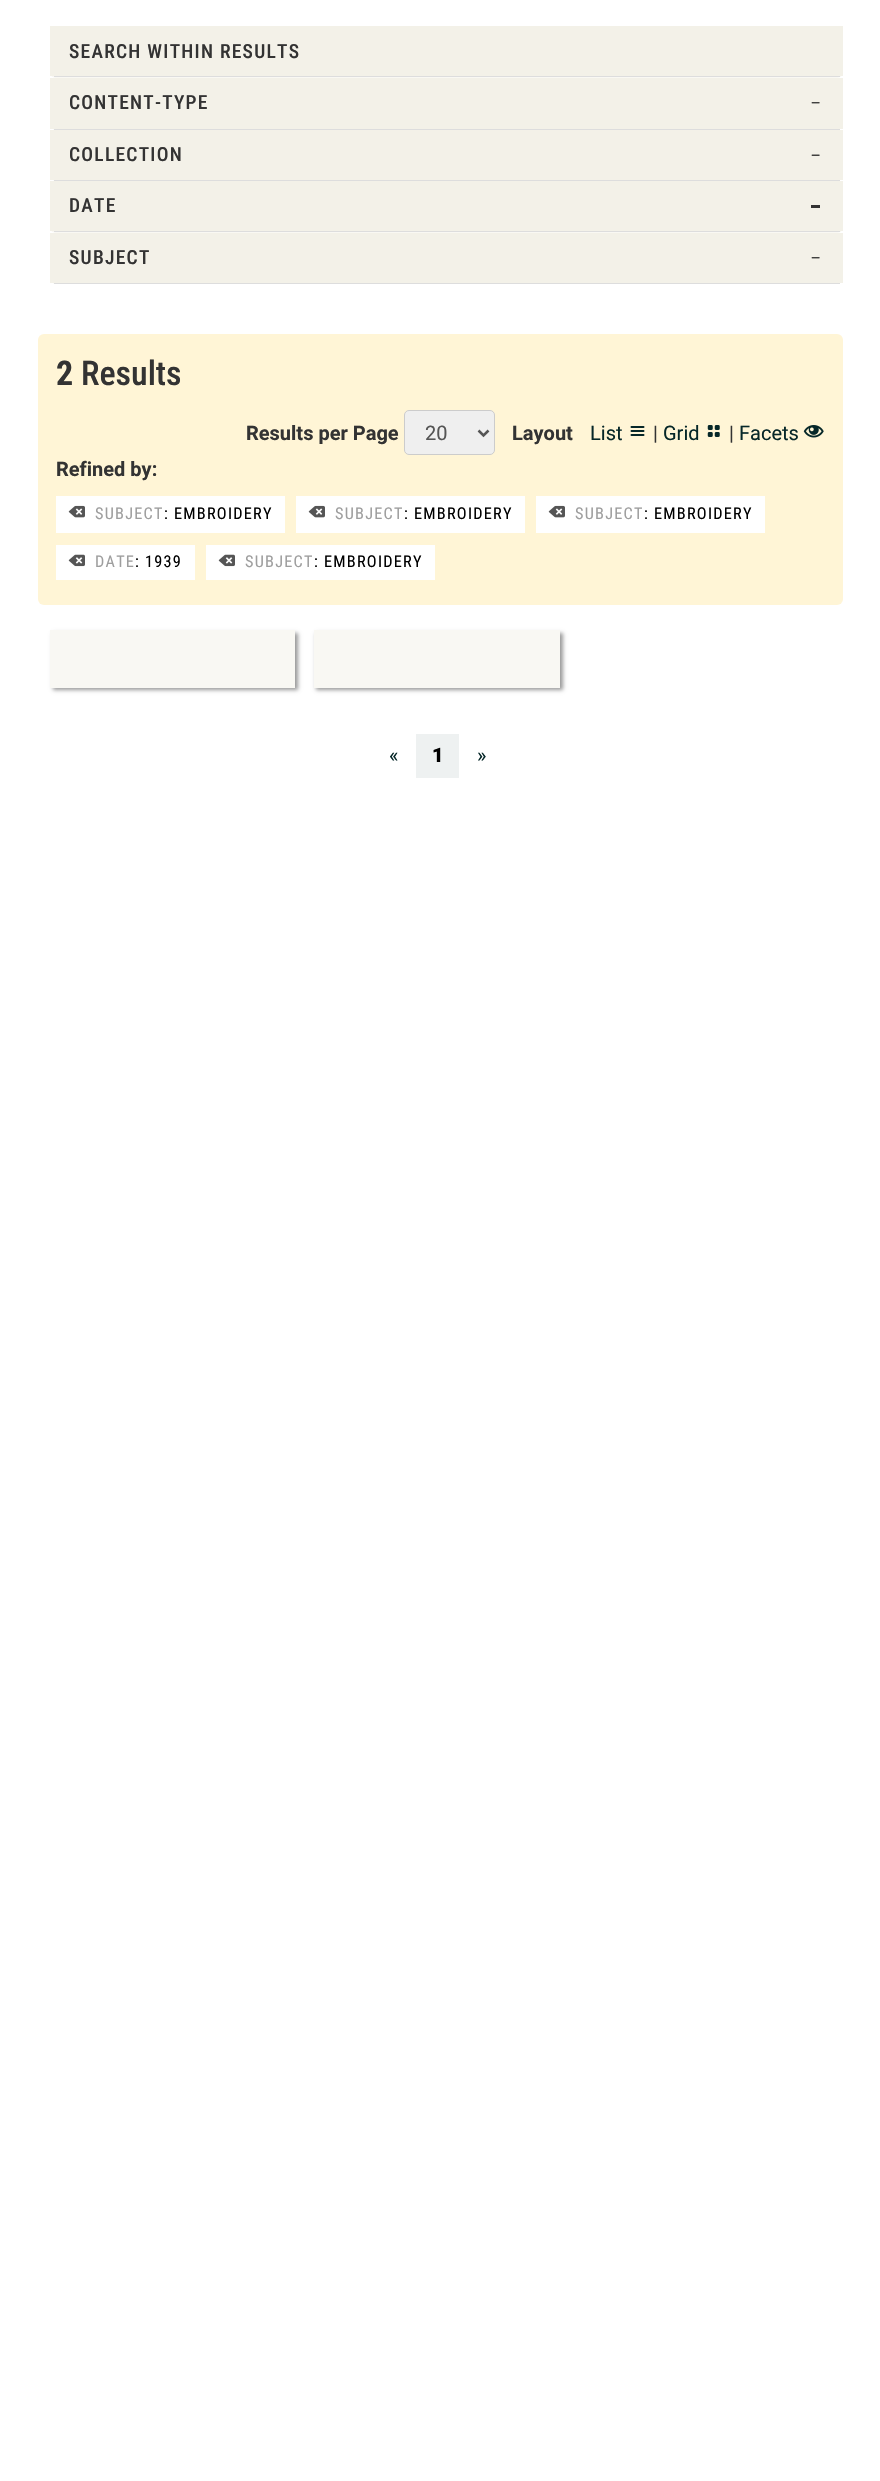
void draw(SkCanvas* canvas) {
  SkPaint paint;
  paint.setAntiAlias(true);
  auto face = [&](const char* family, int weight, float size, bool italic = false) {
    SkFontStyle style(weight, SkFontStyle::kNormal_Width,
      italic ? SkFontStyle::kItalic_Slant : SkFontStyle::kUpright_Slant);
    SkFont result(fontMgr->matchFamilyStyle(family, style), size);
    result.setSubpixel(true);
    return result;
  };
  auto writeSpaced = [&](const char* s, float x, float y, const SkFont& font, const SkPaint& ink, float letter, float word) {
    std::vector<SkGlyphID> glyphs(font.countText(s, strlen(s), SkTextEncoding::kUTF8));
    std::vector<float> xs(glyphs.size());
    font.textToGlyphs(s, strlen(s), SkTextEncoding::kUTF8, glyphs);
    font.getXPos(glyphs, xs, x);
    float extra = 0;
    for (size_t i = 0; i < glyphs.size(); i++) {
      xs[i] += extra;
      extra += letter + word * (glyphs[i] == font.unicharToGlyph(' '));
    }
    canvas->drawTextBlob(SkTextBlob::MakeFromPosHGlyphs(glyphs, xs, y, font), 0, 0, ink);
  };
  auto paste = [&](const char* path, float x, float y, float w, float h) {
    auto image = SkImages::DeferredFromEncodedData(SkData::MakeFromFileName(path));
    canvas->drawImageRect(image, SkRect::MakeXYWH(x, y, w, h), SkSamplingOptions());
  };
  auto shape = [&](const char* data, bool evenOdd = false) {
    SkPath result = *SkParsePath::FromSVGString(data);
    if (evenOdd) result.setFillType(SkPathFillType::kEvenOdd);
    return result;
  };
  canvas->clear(0xffffffff);
  paint.setColor(0xfff9f8f3);
  canvas->drawRoundRect(SkRect::MakeXYWH(50, 26, 793, 52), 6, 6, paint);
  paint.setColor(0xffdddddd);
  canvas->drawRect(SkRect::MakeXYWH(54, 76, 786, 1), paint);
  paint.setColor(0xfff3f1e8);
  canvas->drawRect(SkRect::MakeXYWH(50, 26, 793, 50), paint);
  paint.setColor(0xfff9f8f3);
  canvas->drawRoundRect(SkRect::MakeXYWH(50, 78, 793, 52), 6, 6, paint);
  paint.setColor(0xffdddddd);
  canvas->drawRect(SkRect::MakeXYWH(54, 129, 786, 1), paint);
  paint.setColor(0xfff3f1e8);
  canvas->drawRect(SkRect::MakeXYWH(50, 78, 793, 51), paint);
  paste("img/1.png", 811, 102, 9, 2);
  paint.setColor(0xfff9f8f3);
  canvas->drawRoundRect(SkRect::MakeXYWH(50, 130, 793, 51), 6, 6, paint);
  paint.setColor(0xffdddddd);
  canvas->drawRect(SkRect::MakeXYWH(54, 180, 786, 1), paint);
  paint.setColor(0xfff3f1e8);
  canvas->drawRect(SkRect::MakeXYWH(50, 130, 793, 50), paint);
  paste("img/2.png", 811, 154, 9, 2);
  paint.setColor(0xfff9f8f3);
  canvas->drawRoundRect(SkRect::MakeXYWH(50, 181, 793, 52), 6, 6, paint);
  {
    const struct { float x, y, w, h; SkColor color; } items[] = {
      {54, 231, 786, 1, 0xffdddddd},
      {50, 181, 793, 50, 0xfff3f1e8},
      {811, 205, 9, 3, 0xff333333},
    };
    for (auto [x, y, w, h, color] : items) {
      paint.setColor(color);
      canvas->drawRect(SkRect::MakeXYWH(x, y, w, h), paint);
    }
  }
  paint.setColor(0xfff9f8f3);
  canvas->drawRoundRect(SkRect::MakeXYWH(50, 233, 793, 51), 6, 6, paint);
  paint.setColor(0xffdddddd);
  canvas->drawRect(SkRect::MakeXYWH(54, 283, 786, 1), paint);
  paint.setColor(0xfff3f1e8);
  canvas->drawRect(SkRect::MakeXYWH(50, 233, 793, 50), paint);
  paste("img/1.png", 811, 257, 9, 2);
  paint.setColor(0xfffff5d6);
  canvas->drawRoundRect(SkRect::MakeXYWH(38, 334, 805, 271), 6, 6, paint);
  paint.setColor(0xffefefef);
  canvas->drawRoundRect(SkRect::MakeXYWH(404.5f, 410.5f, 90, 44), 4.5f, 4.5f, paint);
  paint.setStroke(true);
  paint.setStrokeWidth(1);
  paint.setColor(0xffcccccc);
  canvas->drawRoundRect(SkRect::MakeXYWH(404.5f, 410.5f, 90, 44), 4.5f, 4.5f, paint);
  paint.setStrokeWidth(2.5f);
  paint.setColor(0xff555555);
  canvas->drawPath(shape("M478.5 430.5L483.5 435.5L488.5 430.5"), paint);
  paste("img/3.png", 630, 426, 15, 10);
  paste("img/4.png", 707, 425, 13, 12);
  paste("img/5.png", 803, 425, 21, 13);
  paint.setStroke(false);
  paint.setColor(0xffffffff);
  canvas->drawRect(SkRect::MakeXYWH(56, 496, 229, 37), paint);
  paste("img/6.png", 68, 505, 17, 13);
  canvas->drawRect(SkRect::MakeXYWH(296, 496, 229, 37), paint);
  paste("img/6.png", 308, 505, 17, 13);
  canvas->drawRect(SkRect::MakeXYWH(536, 496, 229, 37), paint);
  paste("img/6.png", 548, 505, 17, 13);
  canvas->drawRect(SkRect::MakeXYWH(56, 545, 139, 35), paint);
  paste("img/7.png", 68, 554, 17, 13);
  canvas->drawRect(SkRect::MakeXYWH(206, 545, 229, 35), paint);
  paste("img/7.png", 218, 554, 17, 13);
  paint.setColor(0x66000000);
  paint.setMaskFilter(SkMaskFilter::MakeBlur(kNormal_SkBlurStyle, 2));
  canvas->drawRect(SkRect::MakeXYWH(53, 633, 245, 57), paint);
  paint.setMaskFilter(nullptr);
  paint.setColor(0xfff9f8f3);
  canvas->drawRect(SkRect::MakeXYWH(50, 630, 245, 58), paint);
  paint.setColor(0x66000000);
  paint.setMaskFilter(SkMaskFilter::MakeBlur(kNormal_SkBlurStyle, 2));
  canvas->drawRect(SkRect::MakeXYWH(316, 633, 247, 57), paint);
  paint.setMaskFilter(nullptr);
  paint.setColor(0xfff9f8f3);
  canvas->drawRect(SkRect::MakeXYWH(314, 630, 246, 58), paint);
  paint.setColor(0xffeef1f1);
  canvas->drawRect(SkRect::MakeXYWH(416, 734, 43, 44), paint);
  auto f0 = face("Roboto Condensed", 500, 19.5f);
  paint.setColor(0xff333333);
  {
    const struct { const char* s; float x, y; } items[] = {
      {"SEARCH WITHIN RESULTS", 69, 58},
      {"CONTENT-TYPE", 69, 109},
      {"COLLECTION", 69, 161},
      {"DATE", 69, 212},
      {"SUBJECT", 69, 264},
    };
    for (auto [s, x, y] : items) {
      writeSpaced(s, x, y, f0, paint, 1.25f, 0);
    }
  }
  auto f1 = face("Roboto Condensed", 700, 34);
  canvas->drawString("2", 56, 385, f1, paint);
  auto f2 = face("Roboto Condensed", 500, 34);
  canvas->drawString("Results", 81, 385, f2, paint);
  auto f3 = face("Roboto", 700, 20);
  canvas->drawString("Results per Page", 246, 440, f3, paint);
  auto f4 = face("Roboto", 400, 20);
  paint.setColor(0xff555555);
  canvas->drawString("20", 425, 440, f4, paint);
  paint.setColor(0xff333333);
  canvas->drawString("Layout", 512, 440, f3, paint);
  paint.setColor(0xff062728);
  canvas->drawString("List", 590, 440, f4, paint);
  paint.setColor(0xff333333);
  canvas->drawString("|", 653, 440, f4, paint);
  paint.setColor(0xff062728);
  canvas->drawString("Grid", 663, 440, f4, paint);
  paint.setColor(0xff333333);
  canvas->drawString("|", 729, 440, f4, paint);
  paint.setColor(0xff062728);
  canvas->drawString("Facets", 739, 440, f4, paint);
  paint.setColor(0xff333333);
  canvas->drawString("Refined by:", 56, 476, f3, paint);
  auto f5 = face("Roboto Condensed", 400, 16.25f);
  paint.setColor(0xff9e9e9e);
  writeSpaced("SUBJECT", 95, 519, f5, paint, 1.25f, 0);
  paint.setColor(0xff000000);
  writeSpaced(": EMBROIDERY", 164, 519, f5, paint, 1.25f, 0);
  paint.setColor(0xff9e9e9e);
  writeSpaced("SUBJECT", 335, 519, f5, paint, 1.25f, 0);
  paint.setColor(0xff000000);
  writeSpaced(": EMBROIDERY", 404, 519, f5, paint, 1.25f, 0);
  paint.setColor(0xff9e9e9e);
  writeSpaced("SUBJECT", 575, 519, f5, paint, 1.25f, 0);
  paint.setColor(0xff000000);
  writeSpaced(": EMBROIDERY", 644, 519, f5, paint, 1.25f, 0);
  paint.setColor(0xff9e9e9e);
  writeSpaced("DATE", 95, 567, f5, paint, 1.25f, 0);
  paint.setColor(0xff000000);
  writeSpaced(": 1939", 135, 567, f5, paint, 1.25f, 0);
  paint.setColor(0xff9e9e9e);
  writeSpaced("SUBJECT", 245, 567, f5, paint, 1.25f, 0);
  paint.setColor(0xff000000);
  writeSpaced(": EMBROIDERY", 314, 567, f5, paint, 1.25f, 0);
  paint.setColor(0xff062728);
  canvas->drawString("«", 389, 762, f4, paint);
  auto f6 = face("Roboto", 900, 20);
  paint.setColor(0xff000000);
  canvas->drawString("1", 432, 762, f6, paint);
  paint.setColor(0xff062728);
  canvas->drawString("»", 477, 762, f4, paint);
}
